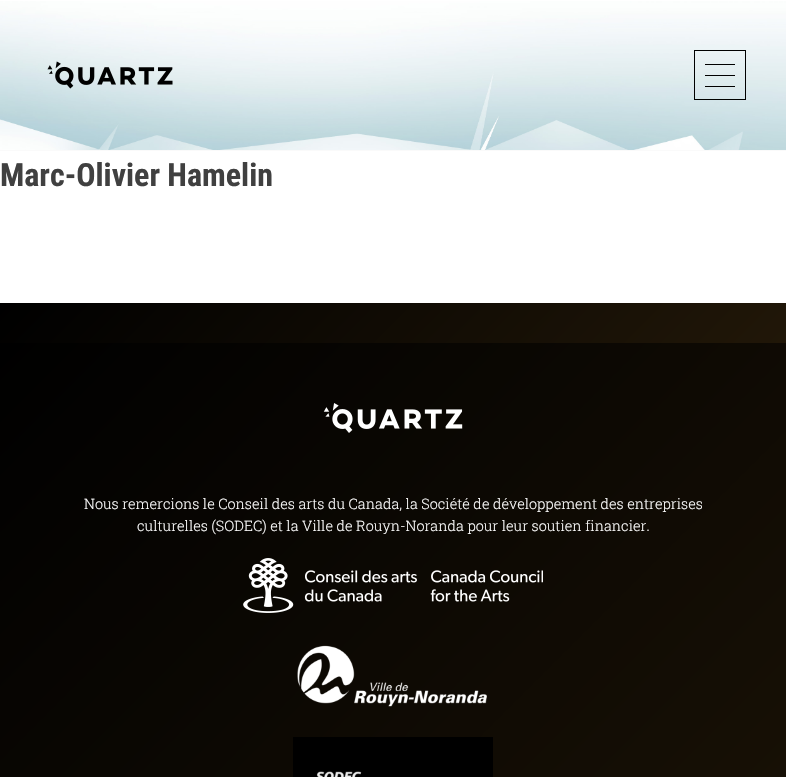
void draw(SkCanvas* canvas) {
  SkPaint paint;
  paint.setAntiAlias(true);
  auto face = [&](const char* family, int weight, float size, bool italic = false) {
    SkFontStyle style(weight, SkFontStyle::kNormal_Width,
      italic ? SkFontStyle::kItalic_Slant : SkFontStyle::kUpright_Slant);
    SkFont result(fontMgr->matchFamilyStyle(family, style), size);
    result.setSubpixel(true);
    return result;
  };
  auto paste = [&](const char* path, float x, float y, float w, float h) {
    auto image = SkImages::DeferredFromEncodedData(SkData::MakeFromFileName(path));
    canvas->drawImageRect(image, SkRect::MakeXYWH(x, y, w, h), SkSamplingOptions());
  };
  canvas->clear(0xffffffff);
  paint.setColor(0xfffafafa);
  canvas->drawRect(SkRect::MakeXYWH(0, 150, 786, 1), paint);
  paste("img/1.png", 0, 1, 786, 149);
  paste("img/2.png", 47, 61, 126, 28);
  paint.setStroke(true);
  paint.setStrokeWidth(1);
  paint.setColor(0xff000000);
  canvas->drawRect(SkRect::MakeXYWH(694.5f, 50.5f, 51, 49), paint);
  paint.setStroke(false);
  {
    const struct { float x, y, w, h; SkColor color; } items[] = {
      {705, 64, 30, 1, 0xff000000},
      {705, 75, 30, 1, 0xff000000},
      {705, 86, 30, 1, 0xff000000},
    };
    for (auto [x, y, w, h, color] : items) {
      paint.setColor(color);
      canvas->drawRect(SkRect::MakeXYWH(x, y, w, h), paint);
    }
  }
  {
    const SkColor colors[] = {0xff000000, 0xff211708};
    const float stops[] = {0, 1};
    const SkPoint ends[] = {{186, 117}, {600, 530}};
    paint.setShader(SkGradientShader::MakeLinear(ends, colors, stops, 2, SkTileMode::kClamp));
    paint.setAlpha(255);
  }
  canvas->drawRect(SkRect::MakeXYWH(0, 303, 786, 40), paint);
  {
    const SkColor colors[] = {0xff000000, 0xff211708};
    const float stops[] = {0, 1};
    const SkPoint ends[] = {{-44, 387}, {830, 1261}};
    paint.setShader(SkGradientShader::MakeLinear(ends, colors, stops, 2, SkTileMode::kClamp));
    paint.setAlpha(255);
  }
  canvas->drawRect(SkRect::MakeXYWH(0, 343, 786, 434), paint);
  paste("img/3.png", 323, 403, 140, 30);
  paste("img/4.png", 243, 558, 300, 55);
  paste("img/5.png", 297, 645, 190, 62);
  paste("img/6.png", 293, 737, 200, 40);
  auto f0 = face("Roboto Condensed", 700, 32);
  paint.setShader(nullptr);
  paint.setColor(0xff404040);
  canvas->drawString("Marc-Olivier Hamelin", 0, 186, f0, paint);
  auto f1 = face("Roboto Slab", 300, 14.4f);
  paint.setColor(0xffffffff);
  canvas->drawString("Nous remercions le Conseil des arts du Canada, la Société de développement des entreprises", 84, 509, f1, paint);
  canvas->drawString("culturelles (SODEC) et la Ville de Rouyn-Noranda pour leur soutien financier.", 137, 531, f1, paint);
}
